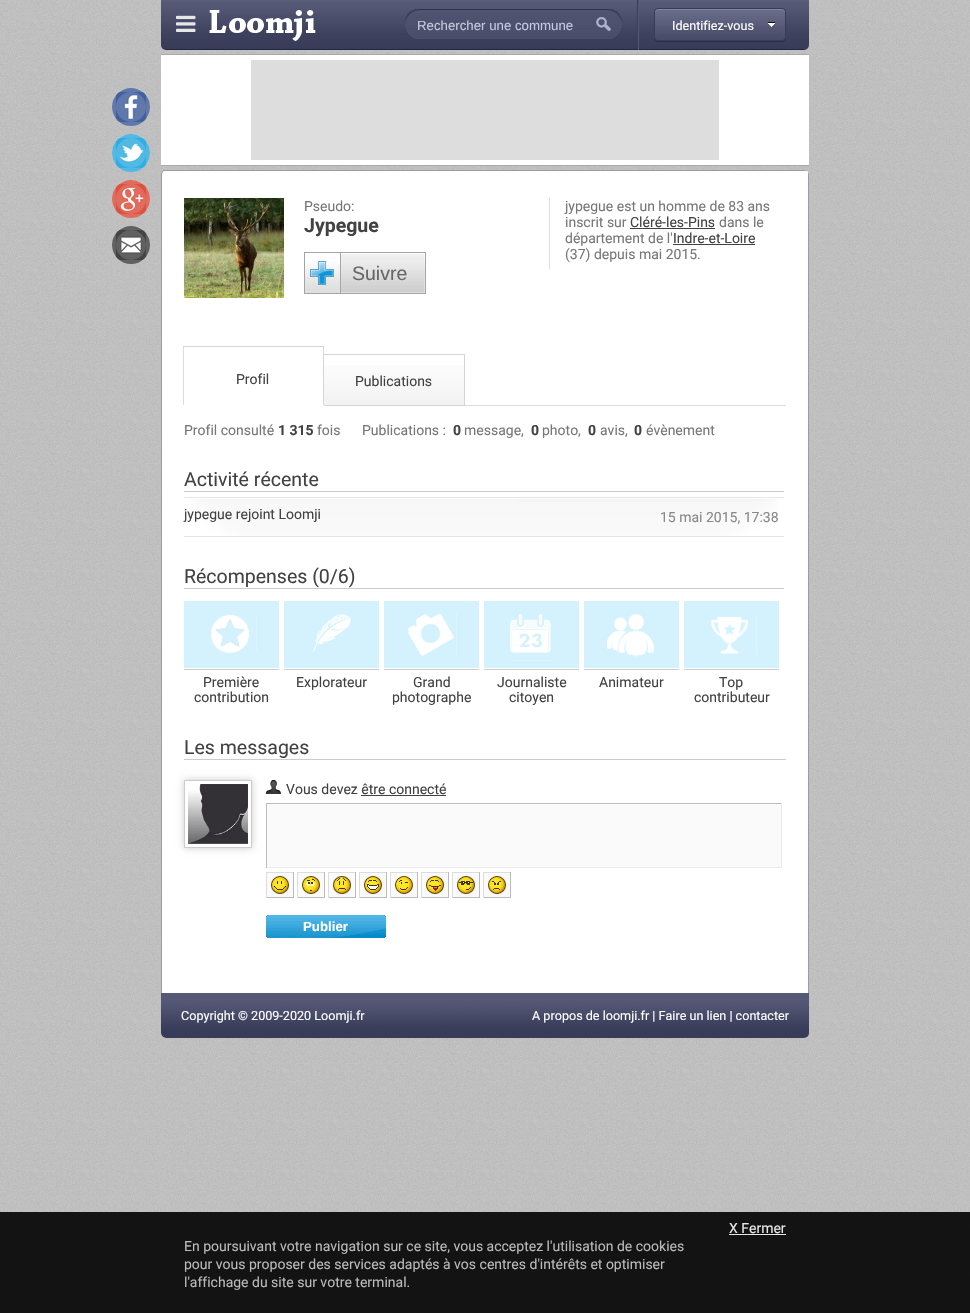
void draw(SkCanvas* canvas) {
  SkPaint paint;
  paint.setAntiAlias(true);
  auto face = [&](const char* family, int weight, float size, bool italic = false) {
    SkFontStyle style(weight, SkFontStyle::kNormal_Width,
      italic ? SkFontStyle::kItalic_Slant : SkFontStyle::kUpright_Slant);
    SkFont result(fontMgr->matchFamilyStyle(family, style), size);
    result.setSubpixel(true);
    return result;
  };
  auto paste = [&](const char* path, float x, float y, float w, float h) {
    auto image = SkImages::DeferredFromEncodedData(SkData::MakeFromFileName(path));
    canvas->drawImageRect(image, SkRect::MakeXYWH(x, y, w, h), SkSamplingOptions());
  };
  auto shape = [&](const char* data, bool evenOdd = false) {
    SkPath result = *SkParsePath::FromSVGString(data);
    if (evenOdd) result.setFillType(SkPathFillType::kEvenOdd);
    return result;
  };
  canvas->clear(0xffffffff);
  paste("img/1.png", 0, 0, 970, 1313);
  paste("img/2.png", 161, 0, 648, 50);
  paste("img/3.png", 176, 15, 20, 17);
  paste("img/4.png", 209, 10, 107, 31);
  paint.setColor(0xff3a3e5b);
  canvas->drawRect(SkRect::MakeXYWH(637, 0, 1, 36), paint);
  paste("img/5.png", 405, 9, 182, 30);
  paste("img/6.png", 587, 9, 35, 30);
  paint.setColor(0xff545875);
  canvas->drawRect(SkRect::MakeXYWH(638, 0, 1, 50), paint);
  paste("img/7.png", 658, 8, 128, 34);
  paste("img/8.png", 654, 8, 4, 34);
  paint.setColor(0xccffffff);
  canvas->drawCircle(131, 107, 19, paint);
  paste("img/9.png", 116, 92, 30, 30);
  paint.setStroke(true);
  paint.setStrokeWidth(4);
  paint.setColor(0xcc3b5998);
  canvas->drawCircle(131, 107, 17, paint);
  paint.setStroke(false);
  paint.setColor(0xccffffff);
  canvas->drawCircle(131, 153, 19, paint);
  paste("img/10.png", 116, 138, 30, 30);
  paint.setStroke(true);
  paint.setColor(0xcc2aaae0);
  canvas->drawCircle(131, 153, 17, paint);
  paint.setStroke(false);
  paint.setColor(0xccffffff);
  canvas->drawCircle(131, 199, 19, paint);
  paste("img/11.png", 116, 184, 30, 30);
  paint.setStroke(true);
  paint.setColor(0xccdc4a38);
  canvas->drawCircle(131, 199, 17, paint);
  paint.setStroke(false);
  paint.setColor(0xccffffff);
  canvas->drawCircle(131, 245, 19, paint);
  paste("img/12.png", 116, 230, 30, 30);
  paint.setStroke(true);
  paint.setColor(0xcc3c3c3c);
  canvas->drawCircle(131, 245, 17, paint);
  paint.setStroke(false);
  {
    const struct { float x, y, w, h; SkColor color; } items[] = {
      {161, 55, 648, 110, 0xffffffff},
      {161, 54, 648, 1, 0xffaaaaaa},
      {161, 165, 648, 1, 0xffaaaaaa},
      {251, 60, 468, 100, 0xffdddddd},
    };
    for (auto [x, y, w, h, color] : items) {
      paint.setColor(color);
      canvas->drawRect(SkRect::MakeXYWH(x, y, w, h), paint);
    }
  }
  paste("img/13.png", 161, 170, 648, 9);
  {
    const struct { float x, y, w, h; SkColor color; } items[] = {
      {808, 173, 1, 820, 0xff9a9ca7},
      {162, 179, 646, 814, 0xffffffff},
      {161, 179, 1, 814, 0xff9a9ca7},
    };
    for (auto [x, y, w, h, color] : items) {
      paint.setColor(color);
      canvas->drawRect(SkRect::MakeXYWH(x, y, w, h), paint);
    }
  }
  paste("img/14.png", 184, 198, 100, 100);
  paste("img/15.png", 304, 252, 122, 42);
  {
    const struct { float x, y, w, h; SkColor color; } items[] = {
      {549, 198, 1, 71, 0xffdddddd},
      {630, 228, 85, 1, 0xff424242},
      {673, 244, 82, 1, 0xff424242},
      {465, 405, 321, 1, 0xffdddddd},
      {183, 346, 1, 60, 0xffdddddd},
      {183, 346, 141, 1, 0xffd5d5d5},
      {323, 346, 1, 60, 0xffd5d5d5},
      {183, 405, 141, 1, 0xffffffff},
      {324, 354, 141, 1, 0xffd5d5d5},
      {464, 354, 1, 52, 0xffd5d5d5},
      {324, 405, 141, 1, 0xffd5d5d5},
    };
    for (auto [x, y, w, h, color] : items) {
      paint.setColor(color);
      canvas->drawRect(SkRect::MakeXYWH(x, y, w, h), paint);
    }
  }
  {
    const SkColor colors[] = {0xffffffff, 0xfff2f2f2};
    const float stops[] = {0, 1};
    const SkPoint ends[] = {{394, 355}, {394, 405}};
    paint.setShader(SkGradientShader::MakeLinear(ends, colors, stops, 2, SkTileMode::kClamp));
    paint.setAlpha(255);
  }
  canvas->drawRect(SkRect::MakeXYWH(324, 365, 140, 40), paint);
  paint.setShader(nullptr);
  paint.setColor(0xffcccccc);
  canvas->drawRect(SkRect::MakeXYWH(184, 491, 600, 1), paint);
  paint.setColor(0xffe5e5e5);
  canvas->drawRect(SkRect::MakeXYWH(184, 536, 600, 1), paint);
  paste("img/16.png", 191, 499, 588, 37);
  {
    const struct { float x, y, w, h; SkColor color; } items[] = {
      {184, 497, 600, 1, 0xffe5e5e5},
      {184, 588, 600, 1, 0xffcccccc},
      {184, 601, 95, 67, 0xffd3f2fe},
    };
    for (auto [x, y, w, h, color] : items) {
      paint.setColor(color);
      canvas->drawRect(SkRect::MakeXYWH(x, y, w, h), paint);
    }
  }
  paste("img/17.png", 211, 615, 46, 38);
  paint.setColor(0xffcccccc);
  canvas->drawRect(SkRect::MakeXYWH(184, 669, 95, 1), paint);
  paint.setColor(0xffd3f2fe);
  canvas->drawRect(SkRect::MakeXYWH(284, 601, 95, 67), paint);
  paste("img/18.png", 313, 614, 38, 39);
  paint.setColor(0xffcccccc);
  canvas->drawRect(SkRect::MakeXYWH(284, 669, 95, 1), paint);
  paint.setColor(0xffd3f2fe);
  canvas->drawRect(SkRect::MakeXYWH(384, 601, 95, 67), paint);
  paste("img/19.png", 408, 613, 49, 43);
  paint.setColor(0xffcccccc);
  canvas->drawRect(SkRect::MakeXYWH(384, 669, 95, 1), paint);
  paint.setColor(0xffd3f2fe);
  canvas->drawRect(SkRect::MakeXYWH(484, 601, 95, 67), paint);
  paste("img/20.png", 510, 614, 42, 47);
  paint.setColor(0xffcccccc);
  canvas->drawRect(SkRect::MakeXYWH(484, 669, 95, 1), paint);
  paint.setColor(0xffd3f2fe);
  canvas->drawRect(SkRect::MakeXYWH(584, 601, 95, 67), paint);
  paste("img/21.png", 607, 614, 47, 43);
  paint.setColor(0xffcccccc);
  canvas->drawRect(SkRect::MakeXYWH(584, 669, 95, 1), paint);
  paint.setColor(0xffd3f2fe);
  canvas->drawRect(SkRect::MakeXYWH(684, 601, 95, 67), paint);
  paste("img/22.png", 711, 615, 46, 40);
  paint.setColor(0xffcccccc);
  canvas->drawRect(SkRect::MakeXYWH(684, 669, 95, 1), paint);
  canvas->drawRect(SkRect::MakeXYWH(184, 759, 602, 1), paint);
  canvas->save();
  canvas->clipPath(shape("M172 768H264V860H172ZM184 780H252V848H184Z", true), true);
  paint.setColor(0x33000000);
  paint.setMaskFilter(SkMaskFilter::MakeBlur(kNormal_SkBlurStyle, 3.5f));
  canvas->drawRect(SkRect::MakeXYWH(184, 780, 68, 68), paint);
  paint.setMaskFilter(nullptr);
  canvas->restore();
  paint.setStroke(true);
  paint.setStrokeWidth(1);
  paint.setColor(0xffcccccc);
  canvas->drawRect(SkRect::MakeXYWH(184.5f, 780.5f, 67, 67), paint);
  paste("img/23.png", 188, 784, 60, 60);
  paste("img/24.png", 266, 780, 15, 14);
  paint.setStroke(false);
  {
    const struct { float x, y, w, h; SkColor color; } items[] = {
      {361, 795, 85, 1, 0xff424242},
      {267, 804, 514, 63, 0xfffafafa},
      {266, 803, 516, 1, 0xffbbbbbb},
      {781, 803, 1, 65, 0xffeaeaea},
      {266, 867, 516, 1, 0xffeaeaea},
      {266, 803, 1, 65, 0xffbbbbbb},
      {266, 872, 28, 1, 0xffdddddd},
      {293, 872, 1, 26, 0xffbbbbbb},
      {266, 897, 28, 1, 0xffbbbbbb},
      {266, 872, 1, 26, 0xffdddddd},
      {297, 872, 28, 1, 0xffdddddd},
      {324, 872, 1, 26, 0xffbbbbbb},
      {297, 897, 28, 1, 0xffbbbbbb},
      {297, 872, 1, 26, 0xffdddddd},
      {328, 872, 28, 1, 0xffdddddd},
      {355, 872, 1, 26, 0xffbbbbbb},
      {328, 897, 28, 1, 0xffbbbbbb},
      {328, 872, 1, 26, 0xffdddddd},
      {359, 872, 28, 1, 0xffdddddd},
      {386, 872, 1, 26, 0xffbbbbbb},
      {359, 897, 28, 1, 0xffbbbbbb},
      {359, 872, 1, 26, 0xffdddddd},
      {390, 872, 28, 1, 0xffdddddd},
      {417, 872, 1, 26, 0xffbbbbbb},
      {390, 897, 28, 1, 0xffbbbbbb},
      {390, 872, 1, 26, 0xffdddddd},
      {421, 872, 28, 1, 0xffdddddd},
      {448, 872, 1, 26, 0xffbbbbbb},
      {421, 897, 28, 1, 0xffbbbbbb},
      {421, 872, 1, 26, 0xffdddddd},
      {452, 872, 28, 1, 0xffdddddd},
      {479, 872, 1, 26, 0xffbbbbbb},
      {452, 897, 28, 1, 0xffbbbbbb},
      {452, 872, 1, 26, 0xffdddddd},
      {483, 872, 28, 1, 0xffdddddd},
      {267, 873, 26, 24, 0xfffafafa},
      {298, 873, 26, 24, 0xfffafafa},
      {329, 873, 26, 24, 0xfffafafa},
      {360, 873, 26, 24, 0xfffafafa},
      {391, 873, 26, 24, 0xfffafafa},
      {422, 873, 26, 24, 0xfffafafa},
      {453, 873, 26, 24, 0xfffafafa},
      {510, 872, 1, 26, 0xffbbbbbb},
      {483, 897, 28, 1, 0xffbbbbbb},
      {483, 872, 1, 26, 0xffdddddd},
      {484, 873, 26, 24, 0xfffafafa},
    };
    for (auto [x, y, w, h, color] : items) {
      paint.setColor(color);
      canvas->drawRect(SkRect::MakeXYWH(x, y, w, h), paint);
    }
  }
  paste("img/25.png", 271, 876, 18, 18);
  paste("img/26.png", 302, 876, 18, 18);
  paste("img/27.png", 333, 876, 18, 18);
  paste("img/28.png", 364, 876, 18, 18);
  paste("img/29.png", 395, 876, 18, 18);
  paste("img/30.png", 426, 876, 18, 18);
  paste("img/31.png", 457, 876, 18, 18);
  paste("img/32.png", 488, 876, 18, 18);
  paste("img/33.png", 266, 915, 120, 23);
  paste("img/34.png", 161, 993, 648, 45);
  paint.setColor(0xe6000000);
  canvas->drawRect(SkRect::MakeXYWH(0, 1212, 970, 101), paint);
  paint.setColor(0xffe7e7e7);
  canvas->drawRect(SkRect::MakeXYWH(729, 1234, 57, 1), paint);
  auto f0 = face("Liberation Sans", 400, 13.25f);
  paint.setColor(0xffc6c8de);
  canvas->drawString("Rechercher une commune", 417, 30, f0, paint);
  auto f1 = face("Roboto", 400, 12.6f);
  paint.setColor(0xffffffff);
  canvas->drawString("Identifiez-vous", 672, 30, f1, paint);
  auto f2 = face("Roboto", 400, 14);
  paint.setColor(0xff777777);
  canvas->drawString("Pseudo:", 304, 211, f2, paint);
  auto f3 = face("Roboto", 700, 19.5f);
  paint.setColor(0xff424242);
  canvas->drawString("Jypegue", 304, 232, f3, paint);
  auto f4 = face("Liberation Sans", 400, 19.5f);
  paint.setColor(0xff666666);
  canvas->drawString("Suivre", 352, 280, f4, paint);
  paint.setColor(0xff777777);
  canvas->drawString("jypegue est un homme de 83 ans", 565, 211, f2, paint);
  canvas->drawString("inscrit sur", 565, 227, f2, paint);
  paint.setColor(0xff424242);
  canvas->drawString("Cléré-les-Pins", 630, 227, f2, paint);
  paint.setColor(0xff777777);
  canvas->drawString("dans le", 719, 227, f2, paint);
  canvas->drawString("département de l'", 565, 243, f2, paint);
  paint.setColor(0xff424242);
  canvas->drawString("Indre-et-Loire", 673, 243, f2, paint);
  paint.setColor(0xff777777);
  canvas->drawString("(37) depuis mai 2015.", 565, 259, f2, paint);
  paint.setColor(0xff424242);
  canvas->drawString("Profil", 236, 384, f2, paint);
  canvas->drawString("Publications", 355, 386, f2, paint);
  paint.setColor(0xff777777);
  canvas->drawString("Profil consulté", 184, 435, f2, paint);
  auto f5 = face("Roboto", 700, 14);
  paint.setColor(0xff424242);
  canvas->drawString("1 315", 278, 435, f5, paint);
  paint.setColor(0xff777777);
  canvas->drawString("fois", 317, 435, f2, paint);
  canvas->drawString("Publications :", 362, 435, f2, paint);
  paint.setColor(0xff424242);
  canvas->drawString("0", 453, 435, f5, paint);
  paint.setColor(0xff777777);
  canvas->drawString("message,", 464, 435, f2, paint);
  paint.setColor(0xff424242);
  canvas->drawString("0", 531, 435, f5, paint);
  paint.setColor(0xff777777);
  canvas->drawString("photo,", 542, 435, f2, paint);
  paint.setColor(0xff424242);
  canvas->drawString("0", 588, 435, f5, paint);
  paint.setColor(0xff777777);
  canvas->drawString("avis,", 600, 435, f2, paint);
  paint.setColor(0xff424242);
  canvas->drawString("0", 634, 435, f5, paint);
  paint.setColor(0xff777777);
  canvas->drawString("évènement", 646, 435, f2, paint);
  auto f6 = face("Roboto", 400, 19.5f);
  paint.setColor(0xff424242);
  canvas->drawString("Activité récente", 184, 486, f6, paint);
  canvas->drawString("jypegue rejoint Loomji", 184, 519, f2, paint);
  paint.setColor(0xff888888);
  canvas->drawString("15 mai 2015, 17:38", 660, 522, f2, paint);
  paint.setColor(0xff424242);
  canvas->drawString("Récompenses (0/6)", 184, 583, f6, paint);
  {
    const struct { const char* s; float x, y; } items[] = {
      {"Première", 203, 687},
      {"contribution", 194, 702},
      {"Explorateur", 296, 687},
      {"Grand", 413, 687},
      {"photographe", 392, 702},
      {"Journaliste", 497, 687},
      {"citoyen", 509, 702},
      {"Animateur", 599, 687},
      {"Top", 719, 687},
      {"contributeur", 694, 702},
    };
    for (auto [s, x, y] : items) {
      canvas->drawString(s, x, y, f2, paint);
    }
  }
  canvas->drawString("Les messages", 184, 754, f6, paint);
  canvas->drawString("Vous devez être connecté", 286, 794, f2, paint);
  auto f7 = face("Liberation Sans", 700, 13.25f);
  paint.setColor(0xffffffff);
  canvas->drawString("Publier", 303, 931, f7, paint);
  canvas->drawString("Copyright © 2009-2020 Loomji.fr", 181, 1020, f1, paint);
  canvas->drawString("A propos de loomji.fr | Faire un lien | contacter", 532, 1020, f1, paint);
  paint.setColor(0xffe7e7e7);
  canvas->drawString("X Fermer", 729, 1233, f2, paint);
  paint.setColor(0xffbababa);
  {
    const struct { const char* s; float x, y; } items[] = {
      {"En poursuivant votre navigation sur ce site, vous acceptez l'utilisation de cookies", 184, 1251},
      {"pour vous proposer des services adaptés à vos centres d'intérêts et optimiser", 184, 1269},
      {"l'affichage du site sur votre terminal.", 184, 1287},
    };
    for (auto [s, x, y] : items) {
      canvas->drawString(s, x, y, f2, paint);
    }
  }
}
